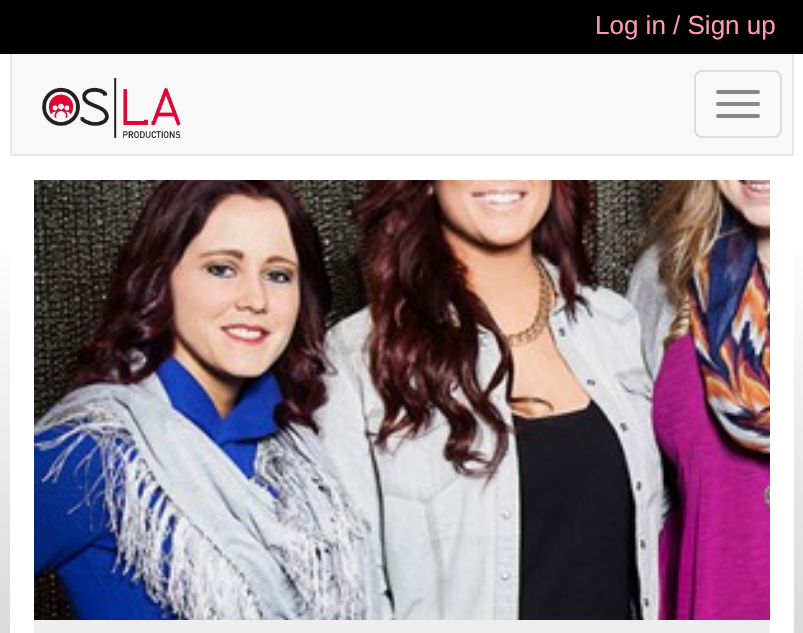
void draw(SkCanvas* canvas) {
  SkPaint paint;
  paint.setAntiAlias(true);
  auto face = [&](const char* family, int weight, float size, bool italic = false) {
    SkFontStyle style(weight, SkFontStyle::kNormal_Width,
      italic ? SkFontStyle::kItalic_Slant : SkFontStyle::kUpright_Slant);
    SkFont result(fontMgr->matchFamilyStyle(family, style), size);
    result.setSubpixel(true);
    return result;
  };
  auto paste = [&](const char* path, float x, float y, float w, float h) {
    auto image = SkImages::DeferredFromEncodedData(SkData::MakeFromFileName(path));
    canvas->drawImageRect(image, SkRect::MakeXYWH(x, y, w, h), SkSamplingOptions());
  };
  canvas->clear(0xffffffff);
  {
    const SkColor colors[] = {0xff424242, 0xffffffff};
    const float stops[] = {0, 0.9f};
    const SkPoint ends[] = {{402, 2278}, {402, 0}};
    paint.setShader(SkGradientShader::MakeLinear(ends, colors, stops, 2, SkTileMode::kClamp));
    paint.setAlpha(255);
  }
  canvas->drawRect(SkRect::MakeXYWH(0, 255, 803, 378), paint);
  paint.setShader(nullptr);
  paint.setColor(0xfff8f8f8);
  canvas->drawRect(SkRect::MakeXYWH(12, 54, 780, 100), paint);
  paint.setStroke(true);
  paint.setStrokeWidth(2);
  paint.setColor(0xffe7e7e7);
  canvas->drawRect(SkRect::MakeXYWH(11, 1, 782, 154), paint);
  paint.setStroke(false);
  paint.setColor(0xff000000);
  canvas->drawRect(SkRect::MakeXYWH(0, 0, 803, 54), paint);
  paste("img/1.png", 42, 78, 139, 60);
  paint.setStroke(true);
  paint.setColor(0xffdddddd);
  canvas->drawRoundRect(SkRect::MakeXYWH(695, 71, 86, 66), 7, 7, paint);
  paint.setStroke(false);
  paint.setColor(0xff888888);
  canvas->drawRoundRect(SkRect::MakeXYWH(716, 90, 44, 4), 2, 2, paint);
  canvas->drawRoundRect(SkRect::MakeXYWH(716, 102, 44, 4), 2, 2, paint);
  canvas->drawRoundRect(SkRect::MakeXYWH(716, 114, 44, 4), 2, 2, paint);
  paint.setColor(0xffffffff);
  canvas->drawRect(SkRect::MakeXYWH(10, 255, 784, 378), paint);
  paste("img/2.png", 34, 180, 736, 440);
  paint.setColor(0xffeeeeee);
  canvas->drawRect(SkRect::MakeXYWH(34, 620, 736, 13), paint);
  auto f0 = face("Liberation Sans", 400, 26);
  paint.setColor(0xffff9baf);
  canvas->drawString("Log in / Sign up", 595, 34, f0, paint);
}
